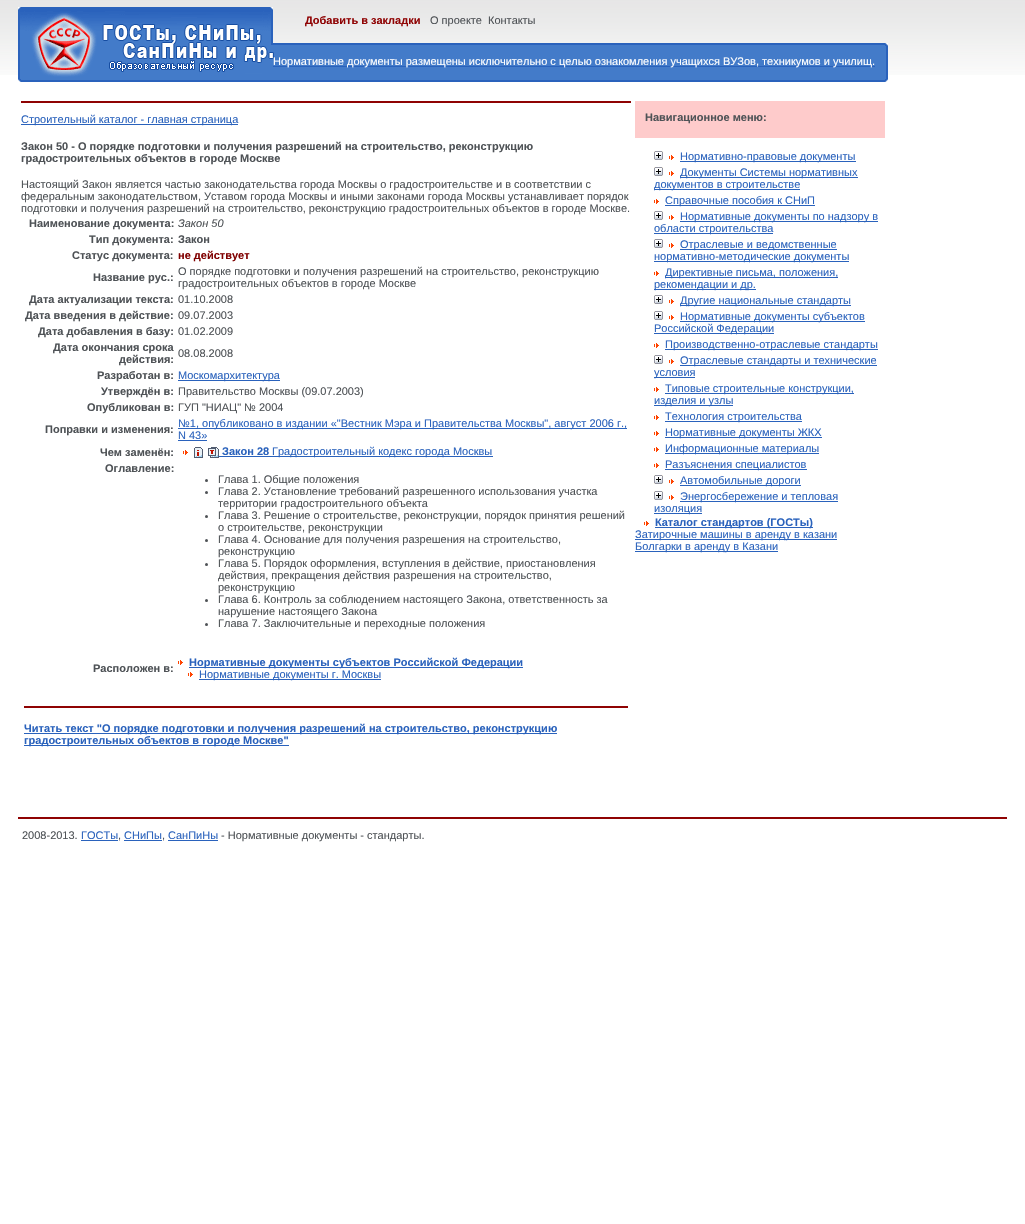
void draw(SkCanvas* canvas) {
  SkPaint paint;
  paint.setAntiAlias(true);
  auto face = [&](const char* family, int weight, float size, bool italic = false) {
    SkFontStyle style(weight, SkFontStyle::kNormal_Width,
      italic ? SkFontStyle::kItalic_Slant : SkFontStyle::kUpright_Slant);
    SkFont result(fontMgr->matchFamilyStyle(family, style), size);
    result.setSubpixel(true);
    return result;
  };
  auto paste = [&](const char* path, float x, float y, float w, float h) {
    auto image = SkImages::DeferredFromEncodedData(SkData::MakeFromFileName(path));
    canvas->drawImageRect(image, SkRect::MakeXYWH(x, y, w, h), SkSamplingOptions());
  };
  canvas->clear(0xffffffff);
  paste("img/1.png", 0, 0, 1025, 75);
  paste("img/2.png", 18, 7, 870, 75);
  {
    const struct { float x, y, w, h; SkColor color; } items[] = {
      {273, 66, 602, 1, 0xff2a62bc},
      {21, 101, 610, 2, 0xff8f0303},
      {21, 124, 217, 1, 0xff2a62bc},
      {178, 380, 102, 1, 0xff2a62bc},
      {178, 428, 449, 1, 0xff2a62bc},
      {178, 440, 29, 1, 0xff2a62bc},
    };
    for (auto [x, y, w, h, color] : items) {
      paint.setColor(color);
      canvas->drawRect(SkRect::MakeXYWH(x, y, w, h), paint);
    }
  }
  paste("img/3.png", 183, 450, 5, 5);
  paste("img/4.png", 194, 447, 9, 11);
  paste("img/5.png", 208, 447, 11, 11);
  canvas->drawRect(SkRect::MakeXYWH(219, 456, 274, 1), paint);
  paint.setColor(0xff4e5256);
  canvas->drawCircle(206.5f, 480.5f, 1.5f, paint);
  canvas->drawCircle(206.5f, 492.5f, 1.5f, paint);
  canvas->drawCircle(206.5f, 516.5f, 1.5f, paint);
  canvas->drawCircle(206.5f, 540.5f, 1.5f, paint);
  canvas->drawCircle(206.5f, 564.5f, 1.5f, paint);
  canvas->drawCircle(206.5f, 600.5f, 1.5f, paint);
  canvas->drawCircle(206.5f, 624.5f, 1.5f, paint);
  paste("img/3.png", 178, 660, 5, 5);
  paint.setColor(0xff2a62bc);
  canvas->drawRect(SkRect::MakeXYWH(189, 667, 334, 1), paint);
  paste("img/3.png", 188, 672, 5, 5);
  {
    const struct { float x, y, w, h; SkColor color; } items[] = {
      {199, 679, 182, 1, 0xff2a62bc},
      {24, 706, 604, 2, 0xff8f0303},
      {24, 733, 533, 1, 0xff2a62bc},
      {24, 745, 265, 1, 0xff2a62bc},
      {635, 101, 250, 37, 0xfffecbcb},
    };
    for (auto [x, y, w, h, color] : items) {
      paint.setColor(color);
      canvas->drawRect(SkRect::MakeXYWH(x, y, w, h), paint);
    }
  }
  paste("img/6.png", 654, 151, 9, 9);
  paste("img/3.png", 669, 155, 5, 5);
  paint.setColor(0xff2a62bc);
  canvas->drawRect(SkRect::MakeXYWH(680, 161, 176, 1), paint);
  paste("img/6.png", 654, 167, 9, 9);
  paste("img/3.png", 669, 171, 5, 5);
  canvas->drawRect(SkRect::MakeXYWH(680, 177, 178, 1), paint);
  canvas->drawRect(SkRect::MakeXYWH(654, 189, 146, 1), paint);
  paste("img/3.png", 654, 199, 5, 5);
  canvas->drawRect(SkRect::MakeXYWH(665, 205, 150, 1), paint);
  paste("img/6.png", 654, 211, 9, 9);
  paste("img/3.png", 669, 215, 5, 5);
  canvas->drawRect(SkRect::MakeXYWH(680, 221, 198, 1), paint);
  canvas->drawRect(SkRect::MakeXYWH(654, 233, 119, 1), paint);
  paste("img/6.png", 654, 239, 9, 9);
  paste("img/3.png", 669, 243, 5, 5);
  canvas->drawRect(SkRect::MakeXYWH(680, 249, 157, 1), paint);
  canvas->drawRect(SkRect::MakeXYWH(654, 261, 195, 1), paint);
  paste("img/3.png", 654, 271, 5, 5);
  canvas->drawRect(SkRect::MakeXYWH(665, 277, 173, 1), paint);
  canvas->drawRect(SkRect::MakeXYWH(654, 289, 102, 1), paint);
  paste("img/6.png", 654, 295, 9, 9);
  paste("img/3.png", 669, 299, 5, 5);
  canvas->drawRect(SkRect::MakeXYWH(680, 305, 171, 1), paint);
  paste("img/6.png", 654, 311, 9, 9);
  paste("img/3.png", 669, 315, 5, 5);
  canvas->drawRect(SkRect::MakeXYWH(680, 321, 185, 1), paint);
  canvas->drawRect(SkRect::MakeXYWH(654, 333, 120, 1), paint);
  paste("img/3.png", 654, 343, 5, 5);
  canvas->drawRect(SkRect::MakeXYWH(665, 349, 213, 1), paint);
  paste("img/6.png", 654, 355, 9, 9);
  paste("img/3.png", 669, 359, 5, 5);
  canvas->drawRect(SkRect::MakeXYWH(680, 365, 197, 1), paint);
  canvas->drawRect(SkRect::MakeXYWH(654, 377, 41, 1), paint);
  paste("img/3.png", 654, 387, 5, 5);
  canvas->drawRect(SkRect::MakeXYWH(665, 393, 189, 1), paint);
  canvas->drawRect(SkRect::MakeXYWH(654, 405, 79, 1), paint);
  paste("img/3.png", 654, 415, 5, 5);
  canvas->drawRect(SkRect::MakeXYWH(665, 421, 137, 1), paint);
  paste("img/3.png", 654, 431, 5, 5);
  canvas->drawRect(SkRect::MakeXYWH(665, 437, 157, 1), paint);
  paste("img/3.png", 654, 447, 5, 5);
  canvas->drawRect(SkRect::MakeXYWH(665, 453, 154, 1), paint);
  paste("img/3.png", 654, 463, 5, 5);
  canvas->drawRect(SkRect::MakeXYWH(665, 469, 142, 1), paint);
  paste("img/6.png", 654, 475, 9, 9);
  paste("img/3.png", 669, 479, 5, 5);
  canvas->drawRect(SkRect::MakeXYWH(680, 485, 121, 1), paint);
  paste("img/6.png", 654, 491, 9, 9);
  paste("img/3.png", 669, 495, 5, 5);
  canvas->drawRect(SkRect::MakeXYWH(680, 501, 158, 1), paint);
  canvas->drawRect(SkRect::MakeXYWH(654, 513, 48, 1), paint);
  paste("img/3.png", 644, 521, 5, 5);
  {
    const struct { float x, y, w, h; SkColor color; } items[] = {
      {655, 527, 158, 1, 0xff2a62bc},
      {635, 539, 202, 1, 0xff2a62bc},
      {635, 551, 143, 1, 0xff2a62bc},
      {18, 817, 989, 2, 0xff8f0303},
      {81, 840, 37, 1, 0xff2a62bc},
      {124, 840, 38, 1, 0xff2a62bc},
      {168, 840, 50, 1, 0xff2a62bc},
    };
    for (auto [x, y, w, h, color] : items) {
      paint.setColor(color);
      canvas->drawRect(SkRect::MakeXYWH(x, y, w, h), paint);
    }
  }
  auto f0 = face("Liberation Sans", 700, 11);
  paint.setColor(0xff8f0303);
  canvas->drawString("Добавить в закладки", 305, 24, f0, paint);
  auto f1 = face("Liberation Sans", 400, 11);
  paint.setColor(0xff4e5256);
  canvas->drawString("О проекте", 430, 24, f1, paint);
  canvas->drawString("Контакты", 488, 24, f1, paint);
  paint.setColor(0xffffffff);
  canvas->drawString("Нормативные документы размещены исключительно с целью ознакомления учащихся ВУЗов, техникумов и училищ.", 273, 65, f1, paint);
  paint.setColor(0xff2a62bc);
  canvas->drawString("Строительный каталог - главная страница", 21, 123, f1, paint);
  paint.setColor(0xff4e5256);
  canvas->drawString("Закон 50 - О порядке подготовки и получения разрешений на строительство, реконструкцию", 21, 150, f0, paint);
  canvas->drawString("градостроительных объектов в городе Москве", 21, 162, f0, paint);
  {
    const struct { const char* s; float x, y; } items[] = {
      {"Настоящий Закон является частью законодательства города Москвы о градостроительстве и в соответствии с", 21, 188},
      {"федеральным законодательством, Уставом города Москвы и иными законами города Москвы устанавливает порядок", 21, 200},
      {"подготовки и получения разрешений на строительство, реконструкцию градостроительных объектов в городе Москве.", 21, 212},
    };
    for (auto [s, x, y] : items) {
      canvas->drawString(s, x, y, f1, paint);
    }
  }
  canvas->drawString("Наименование документа:", 29, 227, f0, paint);
  auto f2 = face("Liberation Sans", 400, 11, true);
  canvas->drawString("Закон 50", 178, 227, f2, paint);
  {
    const struct { const char* s; float x, y; } items[] = {
      {"Тип документа:", 89, 243},
      {"Закон", 178, 243},
      {"Статус документа:", 72, 259},
    };
    for (auto [s, x, y] : items) {
      canvas->drawString(s, x, y, f0, paint);
    }
  }
  paint.setColor(0xff800000);
  canvas->drawString("не действует", 178, 259, f0, paint);
  paint.setColor(0xff4e5256);
  canvas->drawString("Название рус.:", 93, 281, f0, paint);
  canvas->drawString("О порядке подготовки и получения разрешений на строительство, реконструкцию", 178, 275, f1, paint);
  canvas->drawString("градостроительных объектов в городе Москве", 178, 287, f1, paint);
  canvas->drawString("Дата актуализации текста:", 29, 303, f0, paint);
  canvas->drawString("01.10.2008", 178, 303, f1, paint);
  canvas->drawString("Дата введения в действие:", 25, 319, f0, paint);
  canvas->drawString("09.07.2003", 178, 319, f1, paint);
  canvas->drawString("Дата добавления в базу:", 38, 335, f0, paint);
  canvas->drawString("01.02.2009", 178, 335, f1, paint);
  canvas->drawString("Дата окончания срока", 53, 351, f0, paint);
  canvas->drawString("действия:", 119, 363, f0, paint);
  canvas->drawString("08.08.2008", 178, 357, f1, paint);
  canvas->drawString("Разработан в:", 97, 379, f0, paint);
  paint.setColor(0xff2a62bc);
  canvas->drawString("Москомархитектура", 178, 379, f1, paint);
  paint.setColor(0xff4e5256);
  canvas->drawString("Утверждён в:", 101, 395, f0, paint);
  canvas->drawString("Правительство Москвы (09.07.2003)", 178, 395, f1, paint);
  canvas->drawString("Опубликован в:", 87, 411, f0, paint);
  canvas->drawString("ГУП \"НИАЦ\" № 2004", 178, 411, f1, paint);
  canvas->drawString("Поправки и изменения:", 45, 433, f0, paint);
  paint.setColor(0xff2a62bc);
  canvas->drawString("№1, опубликовано в издании «\"Вестник Мэра и Правительства Москвы\", август 2006 г.,", 178, 427, f1, paint);
  canvas->drawString("N 43»", 178, 439, f1, paint);
  paint.setColor(0xff4e5256);
  canvas->drawString("Чем заменён:", 100, 456, f0, paint);
  paint.setColor(0xff2a62bc);
  canvas->drawString("Закон 28", 222, 455, f0, paint);
  canvas->drawString("Градостроительный кодекс города Москвы", 272, 455, f1, paint);
  paint.setColor(0xff4e5256);
  canvas->drawString("Оглавление:", 105, 472, f0, paint);
  {
    const struct { const char* s; float x, y; } items[] = {
      {"Глава 1. Общие положения", 218, 483},
      {"Глава 2. Установление требований разрешенного использования участка", 218, 495},
      {"территории градостроительного объекта", 218, 507},
      {"Глава 3. Решение о строительстве, реконструкции, порядок принятия решений", 218, 519},
      {"о строительстве, реконструкции", 218, 531},
      {"Глава 4. Основание для получения разрешения на строительство,", 218, 543},
      {"реконструкцию", 218, 555},
      {"Глава 5. Порядок оформления, вступления в действие, приостановления", 218, 567},
      {"действия, прекращения действия разрешения на строительство,", 218, 579},
      {"реконструкцию", 218, 591},
      {"Глава 6. Контроль за соблюдением настоящего Закона, ответственность за", 218, 603},
      {"нарушение настоящего Закона", 218, 615},
      {"Глава 7. Заключительные и переходные положения", 218, 627},
    };
    for (auto [s, x, y] : items) {
      canvas->drawString(s, x, y, f1, paint);
    }
  }
  canvas->drawString("Расположен в:", 93, 672, f0, paint);
  paint.setColor(0xff2a62bc);
  canvas->drawString("Нормативные документы субъектов Российской Федерации", 189, 666, f0, paint);
  canvas->drawString("Нормативные документы г. Москвы", 199, 678, f1, paint);
  canvas->drawString("Читать текст \"О порядке подготовки и получения разрешений на строительство, реконструкцию", 24, 732, f0, paint);
  canvas->drawString("градостроительных объектов в городе Москве\"", 24, 744, f0, paint);
  paint.setColor(0xff4e5256);
  canvas->drawString("Навигационное меню:", 645, 121, f0, paint);
  paint.setColor(0xff2a62bc);
  {
    const struct { const char* s; float x, y; } items[] = {
      {"Нормативно-правовые документы", 680, 160},
      {"Документы Системы нормативных", 680, 176},
      {"документов в строительстве", 654, 188},
      {"Справочные пособия к СНиП", 665, 204},
      {"Нормативные документы по надзору в", 680, 220},
      {"области строительства", 654, 232},
      {"Отраслевые и ведомственные", 680, 248},
      {"нормативно-методические документы", 654, 260},
      {"Директивные письма, положения,", 665, 276},
      {"рекомендации и др.", 654, 288},
      {"Другие национальные стандарты", 680, 304},
      {"Нормативные документы субъектов", 680, 320},
      {"Российской Федерации", 654, 332},
      {"Производственно-отраслевые стандарты", 665, 348},
      {"Отраслевые стандарты и технические", 680, 364},
      {"условия", 654, 376},
      {"Типовые строительные конструкции,", 665, 392},
      {"изделия и узлы", 654, 404},
      {"Технология строительства", 665, 420},
      {"Нормативные документы ЖКХ", 665, 436},
      {"Информационные материалы", 665, 452},
      {"Разъяснения специалистов", 665, 468},
      {"Автомобильные дороги", 680, 484},
      {"Энергосбережение и тепловая", 680, 500},
      {"изоляция", 654, 512},
    };
    for (auto [s, x, y] : items) {
      canvas->drawString(s, x, y, f1, paint);
    }
  }
  canvas->drawString("Каталог стандартов (ГОСТы)", 655, 526, f0, paint);
  canvas->drawString("Затирочные машины в аренду в казани", 635, 538, f1, paint);
  canvas->drawString("Болгарки в аренду в Казани", 635, 550, f1, paint);
  paint.setColor(0xff4e5256);
  canvas->drawString("2008-2013.", 22, 839, f1, paint);
  paint.setColor(0xff2a62bc);
  canvas->drawString("ГОСТы", 81, 839, f1, paint);
  paint.setColor(0xff4e5256);
  canvas->drawString(",", 118, 839, f1, paint);
  paint.setColor(0xff2a62bc);
  canvas->drawString("СНиПы", 124, 839, f1, paint);
  paint.setColor(0xff4e5256);
  canvas->drawString(",", 162, 839, f1, paint);
  paint.setColor(0xff2a62bc);
  canvas->drawString("СанПиНы", 168, 839, f1, paint);
  paint.setColor(0xff4e5256);
  canvas->drawString("- Нормативные документы - стандарты.", 221, 839, f1, paint);
}
